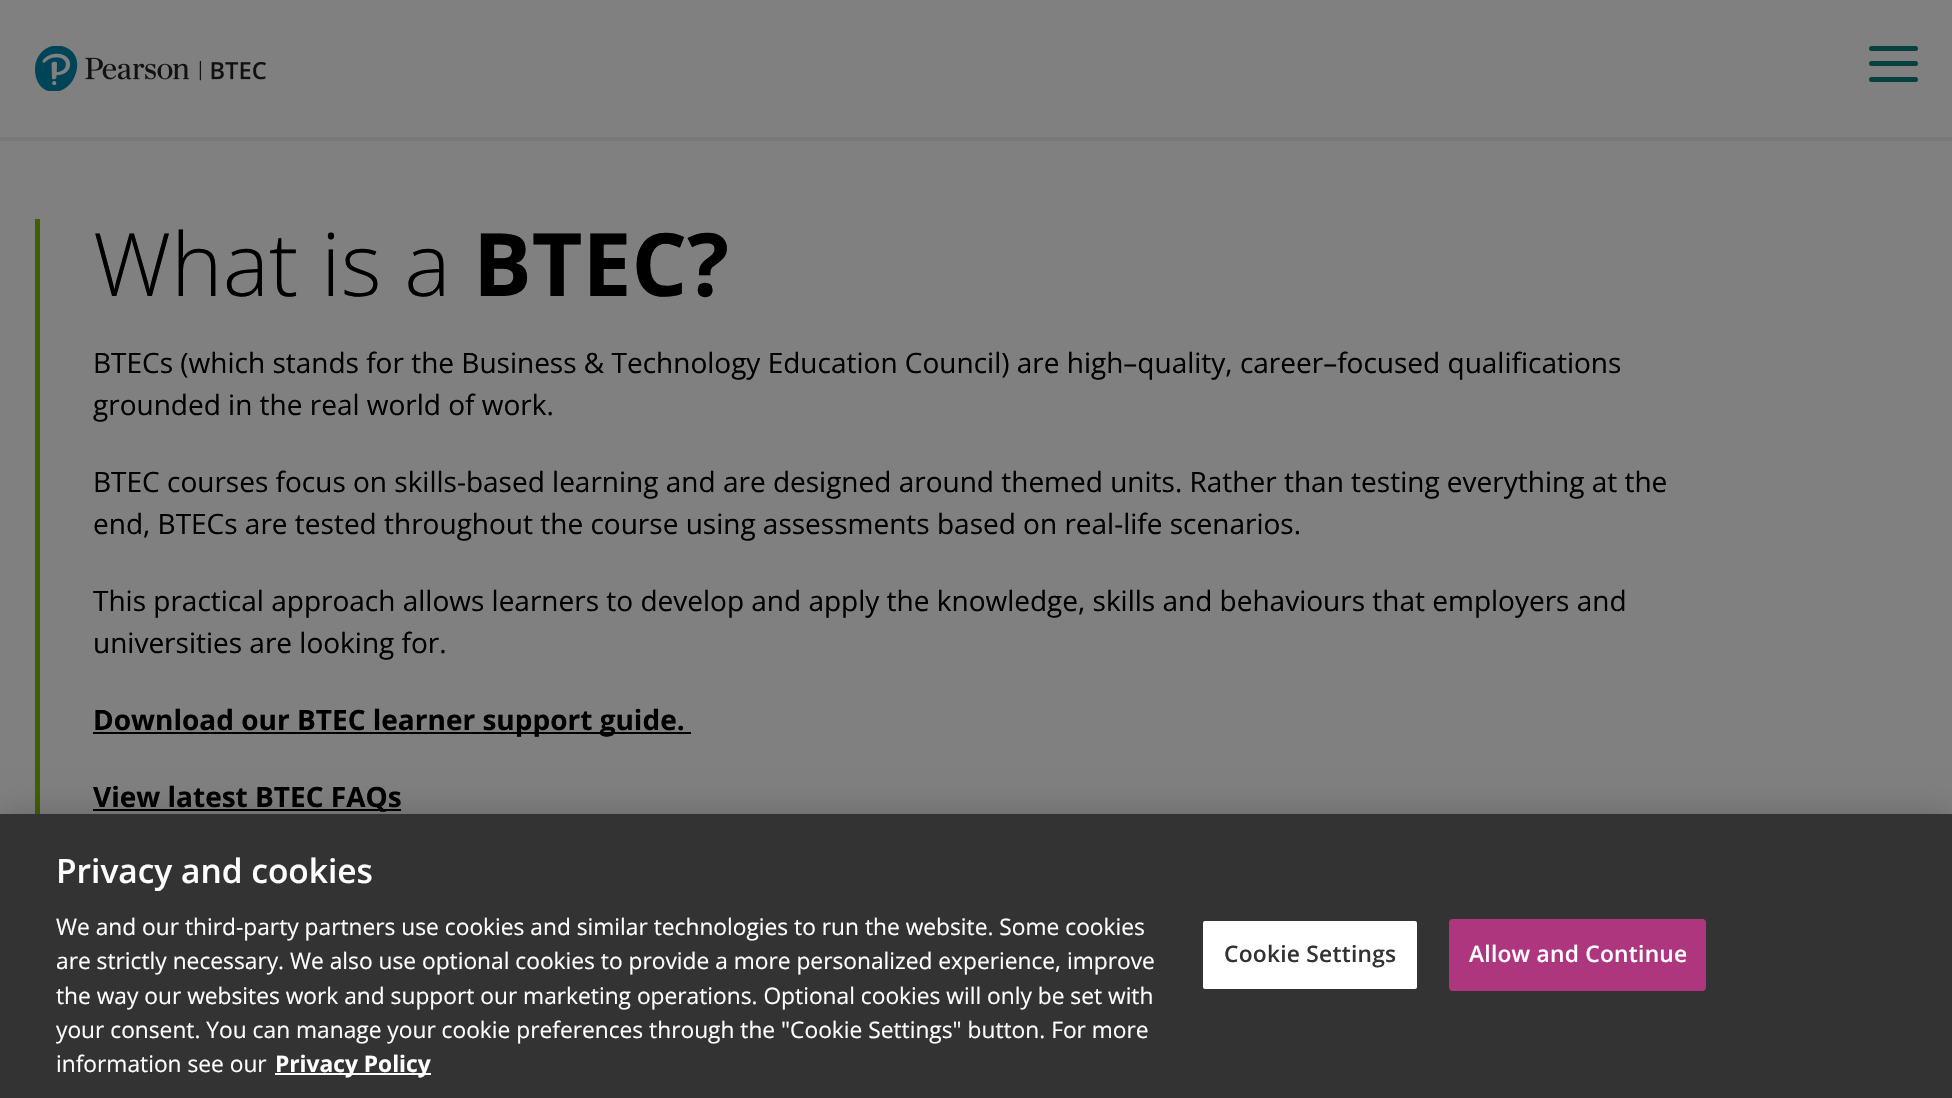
void draw(SkCanvas* canvas) {
  SkPaint paint;
  paint.setAntiAlias(true);
  auto face = [&](const char* family, int weight, float size, bool italic = false) {
    SkFontStyle style(weight, SkFontStyle::kNormal_Width,
      italic ? SkFontStyle::kItalic_Slant : SkFontStyle::kUpright_Slant);
    SkFont result(fontMgr->matchFamilyStyle(family, style), size);
    result.setSubpixel(true);
    return result;
  };
  auto writeSpaced = [&](const char* s, float x, float y, const SkFont& font, const SkPaint& ink, float letter, float word) {
    std::vector<SkGlyphID> glyphs(font.countText(s, strlen(s), SkTextEncoding::kUTF8));
    std::vector<float> xs(glyphs.size());
    font.textToGlyphs(s, strlen(s), SkTextEncoding::kUTF8, glyphs);
    font.getXPos(glyphs, xs, x);
    float extra = 0;
    for (size_t i = 0; i < glyphs.size(); i++) {
      xs[i] += extra;
      extra += letter + word * (glyphs[i] == font.unicharToGlyph(' '));
    }
    canvas->drawTextBlob(SkTextBlob::MakeFromPosHGlyphs(glyphs, xs, y, font), 0, 0, ink);
  };
  auto paste = [&](const char* path, float x, float y, float w, float h) {
    auto image = SkImages::DeferredFromEncodedData(SkData::MakeFromFileName(path));
    canvas->drawImageRect(image, SkRect::MakeXYWH(x, y, w, h), SkSamplingOptions());
  };
  canvas->clear(0xff808080);
  paint.setColor(0xff797979);
  canvas->drawRect(SkRect::MakeXYWH(0, 137, 1952, 4), paint);
  paste("img/1.png", 35, 46, 231, 45);
  paint.setColor(0xff07413d);
  canvas->drawRoundRect(SkRect::MakeXYWH(1869, 61, 49, 5), 2.5f, 2.5f, paint);
  canvas->drawRoundRect(SkRect::MakeXYWH(1869, 46, 49, 5), 2.5f, 2.5f, paint);
  canvas->drawRoundRect(SkRect::MakeXYWH(1869, 77, 49, 5), 2.5f, 2.5f, paint);
  {
    const struct { float x, y, w, h; SkColor color; } items[] = {
      {35, 219, 5, 598, 0xff425f00},
      {93, 732, 598, 2, 0xff000000},
      {93, 809, 308, 2, 0xff000000},
    };
    for (auto [x, y, w, h, color] : items) {
      paint.setColor(color);
      canvas->drawRect(SkRect::MakeXYWH(x, y, w, h), paint);
    }
  }
  paint.setColor(0x33000000);
  paint.setMaskFilter(SkMaskFilter::MakeBlur(kNormal_SkBlurStyle, 16));
  canvas->drawRect(SkRect::MakeXYWH(0, 814, 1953, 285), paint);
  paint.setMaskFilter(nullptr);
  paint.setColor(0xff333333);
  canvas->drawRect(SkRect::MakeXYWH(0, 814, 1952, 284), paint);
  paint.setColor(0xfffefefe);
  canvas->drawRect(SkRect::MakeXYWH(275, 1073, 156, 2), paint);
  paint.setColor(0xffffffff);
  canvas->drawRoundRect(SkRect::MakeXYWH(1202, 920, 216, 70), 3, 3, paint);
  paint.setStroke(true);
  paint.setStrokeWidth(2);
  paint.setColor(0xff333333);
  canvas->drawRoundRect(SkRect::MakeXYWH(1202, 920, 216, 70), 3, 3, paint);
  paint.setStroke(false);
  paint.setColor(0xffae367e);
  canvas->drawRoundRect(SkRect::MakeXYWH(1450, 920, 255, 70), 3, 3, paint);
  paint.setStroke(true);
  canvas->drawRoundRect(SkRect::MakeXYWH(1450, 920, 255, 70), 3, 3, paint);
  auto f0 = face("Open Sans", 300, 87.5f);
  paint.setStroke(false);
  paint.setColor(0xff000000);
  canvas->drawString("What is a", 93, 296, f0, paint);
  auto f1 = face("Open Sans", 700, 87.5f);
  canvas->drawString("BTEC?", 473, 296, f1, paint);
  auto f2 = face("Open Sans", 400, 28);
  {
    const struct { const char* s; float x, y; } items[] = {
      {"BTECs (which stands for the Business & Technology Education Council) are high–quality, career–focused qualifications", 93, 373},
      {"grounded in the real world of work.", 93, 415},
      {"BTEC courses focus on skills-based learning and are designed around themed units. Rather than testing everything at the", 93, 492},
      {"end, BTECs are tested throughout the course using assessments based on real-life scenarios.", 93, 534},
      {"This practical approach allows learners to develop and apply the knowledge, skills and behaviours that employers and", 93, 611},
      {"universities are looking for.", 93, 653},
    };
    for (auto [s, x, y] : items) {
      canvas->drawString(s, x, y, f2, paint);
    }
  }
  auto f3 = face("Open Sans", 700, 28);
  canvas->drawString("Download our BTEC learner support guide.", 93, 730, f3, paint);
  canvas->drawString("View latest BTEC FAQs", 93, 807, f3, paint);
  auto f4 = face("Open Sans", 600, 33.5f);
  paint.setColor(0xfffefefe);
  canvas->drawString("Privacy and cookies", 56, 883, f4, paint);
  auto f5 = face("Open Sans", 400, 22.75f);
  {
    const struct { const char* s; float x, y; } items[] = {
      {"We and our third-party partners use cookies and similar technologies to run the website. Some cookies", 56, 935},
      {"are strictly necessary. We also use optional cookies to provide a more personalized experience, improve", 56, 969},
      {"the way our websites work and support our marketing operations. Optional cookies will only be set with", 56, 1004},
      {"your consent. You can manage your cookie preferences through the \"Cookie Settings\" button. For more", 56, 1038},
      {"information see our", 56, 1072},
    };
    for (auto [s, x, y] : items) {
      canvas->drawString(s, x, y, f5, paint);
    }
  }
  auto f6 = face("Open Sans", 700, 22.75f);
  canvas->drawString("Privacy Policy", 275, 1072, f6, paint);
  auto f7 = face("Open Sans", 600, 22.75f);
  paint.setColor(0xff333333);
  writeSpaced("Cookie Settings", 1224, 962, f7, paint, 0.25f, 0);
  paint.setColor(0xfffefefe);
  writeSpaced("Allow and Continue", 1469, 962, f7, paint, 0.25f, 0);
}
